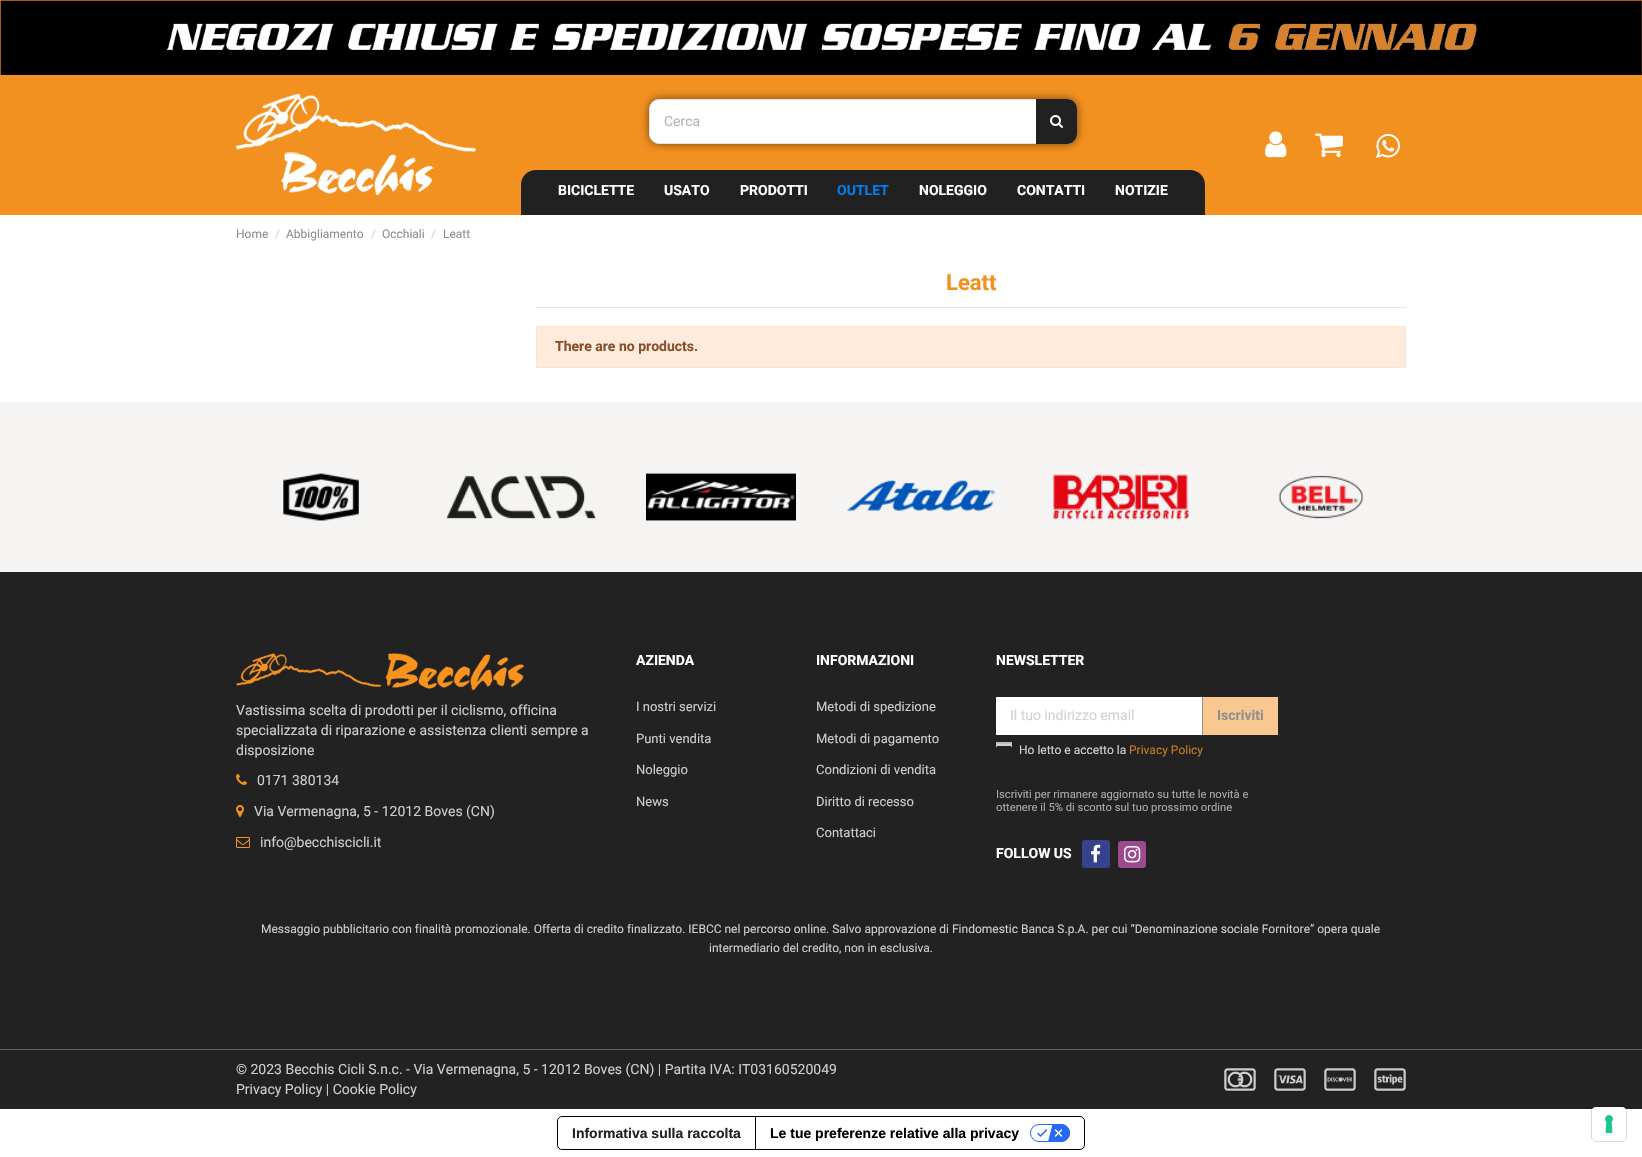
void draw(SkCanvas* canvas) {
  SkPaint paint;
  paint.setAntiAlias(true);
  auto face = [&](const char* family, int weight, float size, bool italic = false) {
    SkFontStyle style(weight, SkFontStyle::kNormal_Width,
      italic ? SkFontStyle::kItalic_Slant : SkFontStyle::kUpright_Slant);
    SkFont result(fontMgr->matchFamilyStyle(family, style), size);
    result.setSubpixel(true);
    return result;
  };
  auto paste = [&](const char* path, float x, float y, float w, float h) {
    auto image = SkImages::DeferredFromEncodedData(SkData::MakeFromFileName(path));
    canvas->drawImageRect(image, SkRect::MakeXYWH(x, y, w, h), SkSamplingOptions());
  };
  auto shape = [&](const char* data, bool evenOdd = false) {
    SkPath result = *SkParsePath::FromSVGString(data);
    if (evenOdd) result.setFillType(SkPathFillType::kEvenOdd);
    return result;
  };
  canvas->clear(0xffffffff);
  paint.setColor(0xfff39120);
  canvas->drawRect(SkRect::MakeXYWH(0, 0, 1642, 215), paint);
  paste("img/1.png", 0, 0, 1642, 75);
  paste("img/2.png", 236, 94, 240, 101);
  paint.setColor(0x87000000);
  paint.setMaskFilter(SkMaskFilter::MakeBlur(kNormal_SkBlurStyle, 5));
  canvas->drawRoundRect(SkRect::MakeXYWH(649, 99, 428, 45), 10, 10, paint);
  paint.setMaskFilter(nullptr);
  paint.setColor(0xffffffff);
  canvas->drawRoundRect(SkRect::MakeXYWH(649.5f, 99.5f, 427, 44), 9.5f, 9.5f, paint);
  paint.setStroke(true);
  paint.setStrokeWidth(1);
  paint.setColor(0xffe3e3e3);
  canvas->drawRoundRect(SkRect::MakeXYWH(649.5f, 99.5f, 427, 44), 9.5f, 9.5f, paint);
  paint.setStroke(false);
  paint.setColor(0xff212121);
  canvas->drawPath(shape("M1036 99H1067C1072.5 99 1077 103.5 1077 109V134C1077 139.5 1072.5 144 1067 144H1036Z"), paint);
  paste("img/3.png", 1050, 115, 13, 13);
  canvas->drawPath(shape("M536 170H1190C1198.5 170 1205 176.5 1205 185V215H521V185C521 176.5 527.5 170 536 170Z"), paint);
  paste("img/4.png", 1265, 131, 22, 27);
  paste("img/5.png", 1315, 133, 28, 25);
  paste("img/6.png", 1376, 133, 24, 25);
  paint.setColor(0xffe3e3e3);
  canvas->drawRect(SkRect::MakeXYWH(536, 307, 870, 1), paint);
  paint.setColor(0xffffebdc);
  canvas->drawRect(SkRect::MakeXYWH(536.5f, 326.5f, 869, 41), paint);
  paint.setStroke(true);
  paint.setColor(0xffffe3cf);
  canvas->drawRect(SkRect::MakeXYWH(536.5f, 326.5f, 869, 41), paint);
  paint.setStroke(false);
  paint.setColor(0xfff5f4f3);
  canvas->drawRect(SkRect::MakeXYWH(0, 402, 1642, 170), paint);
  paste("img/7.png", 283, 473, 76, 48);
  paste("img/8.png", 446, 475, 150, 44);
  paste("img/9.png", 646, 473, 150, 48);
  paste("img/10.png", 847, 480, 148, 31);
  paste("img/11.png", 1053, 474, 136, 46);
  paste("img/12.png", 1278, 475, 86, 44);
  paint.setColor(0xff222222);
  canvas->drawRect(SkRect::MakeXYWH(0, 572, 1642, 537), paint);
  paste("img/13.png", 236, 653, 289, 37);
  paste("img/14.png", 236, 774, 11, 11);
  paste("img/15.png", 236, 805, 8, 12);
  paste("img/16.png", 236, 837, 14, 11);
  {
    const struct { float x, y, w, h; SkColor color; } items[] = {
      {996, 697, 206, 38, 0xffffffff},
      {1203, 697, 75, 38, 0xfff9c890},
      {1202, 697, 1, 38, 0xff909090},
      {997, 744, 14, 3, 0xffd3d3d3},
      {997, 743, 14, 1, 0xffc1c1c1},
    };
    for (auto [x, y, w, h, color] : items) {
      paint.setColor(color);
      canvas->drawRect(SkRect::MakeXYWH(x, y, w, h), paint);
    }
  }
  paint.setStroke(true);
  paint.setColor(0xffbcbcbc);
  canvas->drawRect(SkRect::MakeXYWH(996.5f, 742.5f, 15, 15), paint);
  paint.setStroke(false);
  paint.setColor(0xff222222);
  canvas->drawRoundRect(SkRect::MakeXYWH(996.5f, 746.5f, 15, 15), 1.5f, 1.5f, paint);
  paint.setStroke(true);
  canvas->drawRoundRect(SkRect::MakeXYWH(996.5f, 746.5f, 15, 15), 1.5f, 1.5f, paint);
  paint.setStroke(false);
  paint.setColor(0xff36428e);
  canvas->drawRoundRect(SkRect::MakeXYWH(1082, 840, 28, 28), 3, 3, paint);
  paste("img/17.png", 1091, 844, 10, 19);
  paint.setColor(0xff9b4a8e);
  canvas->drawRoundRect(SkRect::MakeXYWH(1118, 841, 28, 27), 3, 3, paint);
  paste("img/18.png", 1124, 846, 17, 17);
  paint.setColor(0xff666666);
  canvas->drawRect(SkRect::MakeXYWH(0, 1049, 1642, 1), paint);
  paste("img/19.png", 1224, 1068, 182, 23);
  paint.setStroke(true);
  paint.setColor(0xff000000);
  canvas->drawRoundRect(SkRect::MakeXYWH(557.5f, 1116.5f, 527, 33), 4.5f, 4.5f, paint);
  paint.setStroke(false);
  canvas->drawRect(SkRect::MakeXYWH(755, 1117, 1, 32), paint);
  paste("img/20.png", 1030, 1124, 40, 18);
  paint.setStroke(true);
  paint.setColor(0x26000000);
  canvas->drawRoundRect(SkRect::MakeXYWH(1591.5f, 1106.5f, 35, 35), 4.5f, 4.5f, paint);
  paint.setStroke(false);
  paint.setColor(0xffffffff);
  canvas->drawRoundRect(SkRect::MakeXYWH(1592, 1107, 34, 34), 4, 4, paint);
  paste("img/21.png", 1605, 1115, 8, 18);
  auto f0 = face("Roboto", 400, 14);
  paint.setColor(0xffb5b5b0);
  canvas->drawString("Cerca", 664, 126, f0, paint);
  auto f1 = face("Roboto", 700, 14);
  paint.setColor(0xffffffff);
  {
    const struct { const char* s; float x, y; } items[] = {
      {"BICICLETTE", 558, 195},
      {"USATO", 664, 195},
      {"PRODOTTI", 740, 195},
    };
    for (auto [s, x, y] : items) {
      canvas->drawString(s, x, y, f1, paint);
    }
  }
  paint.setColor(0xff007df0);
  canvas->drawString("OUTLET", 837, 195, f1, paint);
  paint.setColor(0xffffffff);
  {
    const struct { const char* s; float x, y; } items[] = {
      {"NOLEGGIO", 919, 195},
      {"CONTATTI", 1017, 195},
      {"NOTIZIE", 1115, 195},
    };
    for (auto [s, x, y] : items) {
      canvas->drawString(s, x, y, f1, paint);
    }
  }
  auto f2 = face("Roboto", 400, 12);
  paint.setColor(0xff8f8f8f);
  canvas->drawString("Home", 236, 238, f2, paint);
  paint.setColor(0xffd2d2d2);
  canvas->drawString("/", 275, 238, f2, paint);
  paint.setColor(0xff8f8f8f);
  canvas->drawString("Abbigliamento", 286, 238, f2, paint);
  paint.setColor(0xffd2d2d2);
  canvas->drawString("/", 371, 238, f2, paint);
  paint.setColor(0xff8f8f8f);
  canvas->drawString("Occhiali", 382, 238, f2, paint);
  paint.setColor(0xffd2d2d2);
  canvas->drawString("/", 431, 238, f2, paint);
  paint.setColor(0xff8f8f8f);
  canvas->drawString("Leatt", 443, 238, f2, paint);
  auto f3 = face("Roboto", 700, 22);
  paint.setColor(0xfff39120);
  canvas->drawString("Leatt", 946, 290, f3, paint);
  paint.setColor(0xff85502b);
  canvas->drawString("There are no products.", 555, 351, f1, paint);
  paint.setColor(0xffcccccc);
  {
    const struct { const char* s; float x, y; } items[] = {
      {"Vastissima scelta di prodotti per il ciclismo, officina", 236, 715},
      {"specializzata di riparazione e assistenza clienti sempre a", 236, 735},
      {"disposizione", 236, 755},
      {"0171 380134", 257, 785},
      {"Via Vermenagna, 5 - 12012 Boves (CN)", 254, 816},
      {"info@becchiscicli.it", 260, 847},
    };
    for (auto [s, x, y] : items) {
      canvas->drawString(s, x, y, f0, paint);
    }
  }
  paint.setColor(0xffffffff);
  canvas->drawString("AZIENDA", 636, 665, f1, paint);
  auto f4 = face("Roboto", 400, 13);
  paint.setColor(0xffcccccc);
  {
    const struct { const char* s; float x, y; } items[] = {
      {"I nostri servizi", 636, 711},
      {"Punti vendita", 636, 743},
      {"Noleggio", 636, 774},
      {"News", 636, 806},
    };
    for (auto [s, x, y] : items) {
      canvas->drawString(s, x, y, f4, paint);
    }
  }
  paint.setColor(0xffffffff);
  canvas->drawString("INFORMAZIONI", 816, 665, f1, paint);
  paint.setColor(0xffcccccc);
  {
    const struct { const char* s; float x, y; } items[] = {
      {"Metodi di spedizione", 816, 711},
      {"Metodi di pagamento", 816, 743},
      {"Condizioni di vendita", 816, 774},
      {"Diritto di recesso", 816, 806},
      {"Contattaci", 816, 837},
    };
    for (auto [s, x, y] : items) {
      canvas->drawString(s, x, y, f4, paint);
    }
  }
  paint.setColor(0xffffffff);
  canvas->drawString("NEWSLETTER", 996, 665, f1, paint);
  paint.setColor(0xffd2d2d2);
  canvas->drawString("Il tuo indirizzo email", 1010, 720, f0, paint);
  paint.setColor(0xff8f8f8f);
  canvas->drawString("Iscriviti", 1217, 720, f1, paint);
  paint.setColor(0xffd2d2d2);
  canvas->drawString("Ho letto e accetto la", 1019, 754, f2, paint);
  paint.setColor(0xffc97b20);
  canvas->drawString("Privacy Policy", 1129, 754, f2, paint);
  auto f5 = face("Roboto", 400, 11.2f);
  paint.setColor(0xffaaaaaa);
  canvas->drawString("Iscriviti per rimanere aggiornato su tutte le novità e", 996, 798, f5, paint);
  canvas->drawString("ottenere il 5% di sconto sul tuo prossimo ordine", 996, 811, f5, paint);
  paint.setColor(0xffffffff);
  canvas->drawString("FOLLOW US", 996, 858, f1, paint);
  paint.setColor(0xffcccccc);
  canvas->drawString("Messaggio pubblicitario con finalità promozionale. Offerta di credito finalizzato. IEBCC nel percorso online. Salvo approvazione di Findomestic Banca S.p.A. per cui “Denominazione sociale Fornitore” opera quale", 261, 933, f2, paint);
  canvas->drawString("intermediario del credito, non in esclusiva.", 709, 952, f2, paint);
  canvas->drawString("© 2023 Becchis Cicli S.n.c. - Via Vermenagna, 5 - 12012 Boves (CN) | Partita IVA: IT03160520049", 236, 1074, f0, paint);
  canvas->drawString("Privacy Policy | Cookie Policy", 236, 1094, f0, paint);
  auto f6 = face("Liberation Sans", 700, 14);
  paint.setColor(0xff212121);
  canvas->drawString("Informativa sulla raccolta", 572, 1138, f6, paint);
  paint.setColor(0xff000000);
  canvas->drawString("Le tue preferenze relative alla privacy", 770, 1138, f6, paint);
}
